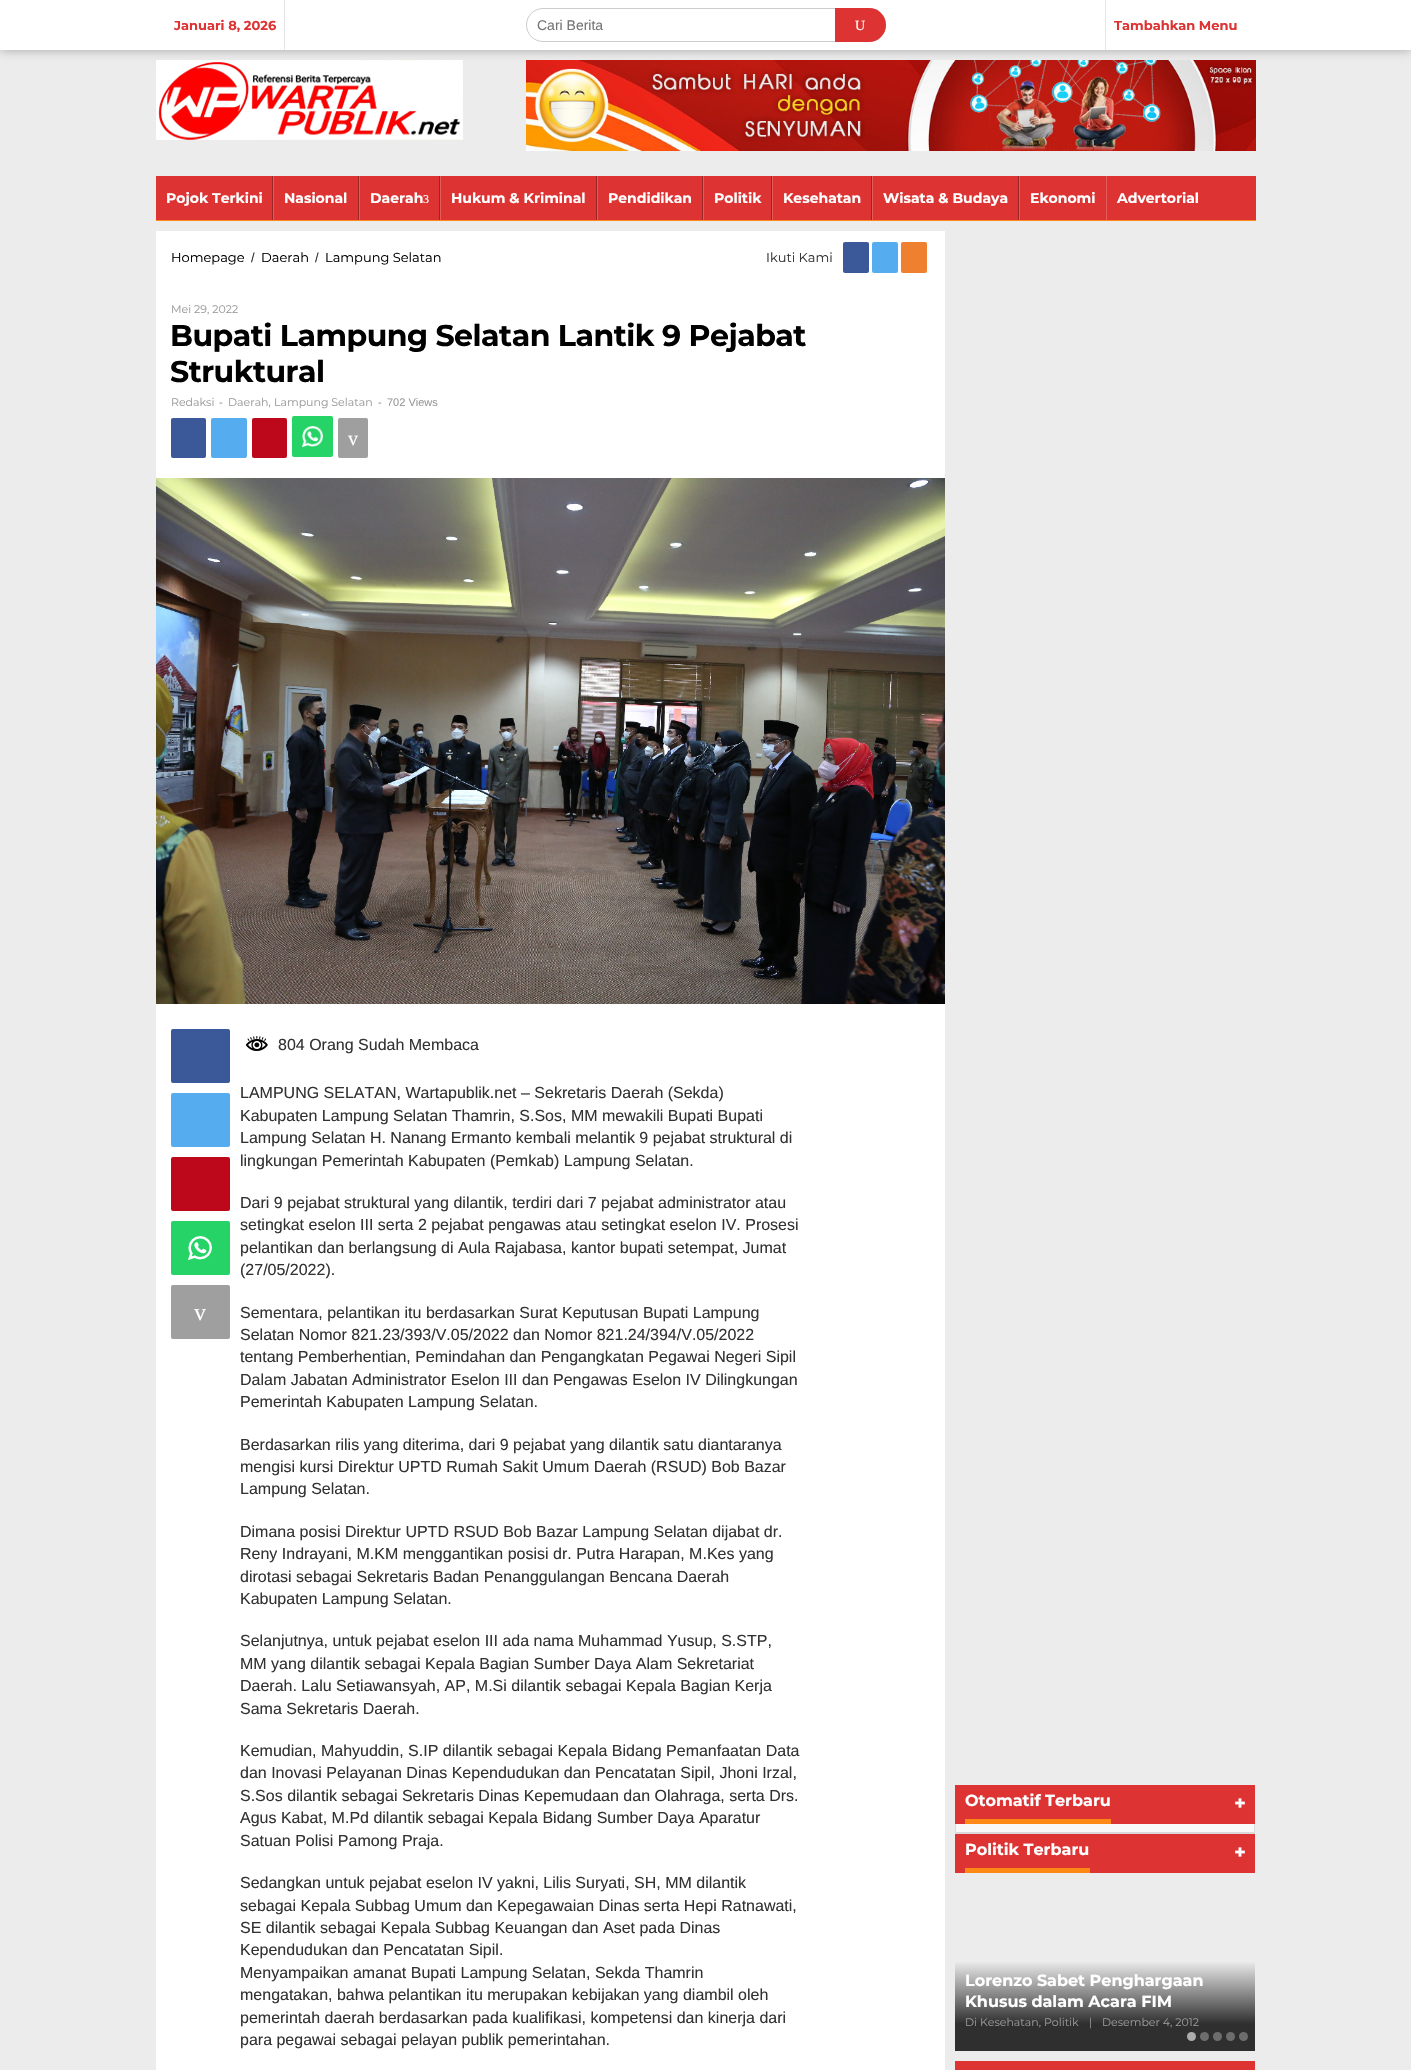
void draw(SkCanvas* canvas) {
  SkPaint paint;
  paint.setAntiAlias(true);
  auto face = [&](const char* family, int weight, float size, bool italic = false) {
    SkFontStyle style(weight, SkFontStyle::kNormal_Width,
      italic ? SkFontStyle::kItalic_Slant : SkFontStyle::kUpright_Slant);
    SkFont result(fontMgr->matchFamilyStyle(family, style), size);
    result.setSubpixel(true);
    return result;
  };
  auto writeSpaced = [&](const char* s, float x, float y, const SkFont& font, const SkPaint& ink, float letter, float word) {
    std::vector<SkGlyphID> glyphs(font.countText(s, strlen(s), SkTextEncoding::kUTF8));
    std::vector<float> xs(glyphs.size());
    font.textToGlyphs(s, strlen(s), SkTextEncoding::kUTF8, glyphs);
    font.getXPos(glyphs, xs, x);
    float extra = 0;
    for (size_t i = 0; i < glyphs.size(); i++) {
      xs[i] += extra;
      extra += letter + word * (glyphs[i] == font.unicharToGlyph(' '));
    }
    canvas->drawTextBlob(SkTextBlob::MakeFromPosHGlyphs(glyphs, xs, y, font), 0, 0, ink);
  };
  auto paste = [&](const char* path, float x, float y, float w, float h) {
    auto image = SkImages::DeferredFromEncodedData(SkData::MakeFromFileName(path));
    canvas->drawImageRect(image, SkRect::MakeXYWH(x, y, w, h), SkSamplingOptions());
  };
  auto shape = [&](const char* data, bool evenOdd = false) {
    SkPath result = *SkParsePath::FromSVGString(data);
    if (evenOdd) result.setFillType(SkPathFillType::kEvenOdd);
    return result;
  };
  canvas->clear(0xffececec);
  paint.setColor(0x4d000000);
  paint.setMaskFilter(SkMaskFilter::MakeBlur(kNormal_SkBlurStyle, 5));
  canvas->drawRect(SkRect::MakeXYWH(0, 0, 1411, 50), paint);
  paint.setMaskFilter(nullptr);
  paint.setColor(0xffffffff);
  canvas->drawRect(SkRect::MakeXYWH(0, 0, 1411, 50), paint);
  paint.setColor(0xffe6e6e6);
  canvas->drawRect(SkRect::MakeXYWH(284, 0, 1, 50), paint);
  paint.setStroke(true);
  paint.setStrokeWidth(1);
  paint.setColor(0xffcccccc);
  canvas->drawRoundRect(SkRect::MakeXYWH(526.5f, 8.5f, 359, 33), 16.5f, 16.5f, paint);
  paint.setStroke(false);
  paint.setColor(0xffdd3333);
  canvas->drawPath(shape("M835 8H869C878.5 8 886 15.5 886 25C886 34.5 878.5 42 869 42H835Z"), paint);
  paint.setColor(0xffe6e6e6);
  canvas->drawRect(SkRect::MakeXYWH(1105, 0, 1, 50), paint);
  paste("img/1.png", 156, 60, 307, 80);
  paste("img/2.png", 526, 60, 730, 91);
  {
    const struct { float x, y, w, h; SkColor color; } items[] = {
      {156, 176, 1100, 44, 0xffdd3333},
      {156, 220, 1100, 1, 0xfffe8917},
      {272, 176, 1, 44, 0xff9b2424},
      {358, 176, 1, 44, 0xff9b2424},
      {273, 176, 1, 44, 0xffe45c5c},
      {439, 176, 1, 44, 0xff9b2424},
      {359, 176, 1, 44, 0xffe45c5c},
      {596, 176, 1, 44, 0xff9b2424},
      {440, 176, 1, 44, 0xffe45c5c},
      {702, 176, 1, 44, 0xff9b2424},
      {597, 176, 1, 44, 0xffe45c5c},
      {771, 176, 1, 44, 0xff9b2424},
      {703, 176, 1, 44, 0xffe45c5c},
      {871, 176, 1, 44, 0xff9b2424},
      {772, 176, 1, 44, 0xffe45c5c},
      {1018, 176, 1, 44, 0xff9b2424},
      {872, 176, 1, 44, 0xffe45c5c},
      {1019, 176, 1, 44, 0xffe45c5c},
      {1106, 176, 1, 44, 0xffe45c5c},
      {156, 231, 789, 1839, 0xffffffff},
    };
    for (auto [x, y, w, h, color] : items) {
      paint.setColor(color);
      canvas->drawRect(SkRect::MakeXYWH(x, y, w, h), paint);
    }
  }
  paint.setColor(0xff3b5998);
  canvas->drawRoundRect(SkRect::MakeXYWH(843, 242, 26, 31), 2, 2, paint);
  paint.setColor(0xff55acee);
  canvas->drawRoundRect(SkRect::MakeXYWH(872, 242, 26, 31), 2, 2, paint);
  paint.setColor(0xffee802f);
  canvas->drawRoundRect(SkRect::MakeXYWH(901, 242, 26, 31), 2, 2, paint);
  paint.setColor(0xff3b5998);
  canvas->drawRoundRect(SkRect::MakeXYWH(171, 418, 35, 40), 2, 2, paint);
  paint.setColor(0xff55acee);
  canvas->drawRoundRect(SkRect::MakeXYWH(211, 418, 36, 40), 2, 2, paint);
  paint.setColor(0xffbd081c);
  canvas->drawRoundRect(SkRect::MakeXYWH(252, 418, 35, 40), 2, 2, paint);
  paint.setColor(0xff25d366);
  canvas->drawRoundRect(SkRect::MakeXYWH(292, 416, 41, 41), 2, 2, paint);
  paste("img/3.png", 302, 426, 21, 21);
  paint.setColor(0xff9f9f9f);
  canvas->drawRoundRect(SkRect::MakeXYWH(338, 418, 30, 40), 2, 2, paint);
  paste("img/4.png", 156, 478, 789, 526);
  paint.setColor(0xff3b5998);
  canvas->drawRoundRect(SkRect::MakeXYWH(171, 1029, 59, 54), 2, 2, paint);
  paint.setColor(0xff55acee);
  canvas->drawRoundRect(SkRect::MakeXYWH(171, 1093, 59, 54), 2, 2, paint);
  paint.setColor(0xffbd081c);
  canvas->drawRoundRect(SkRect::MakeXYWH(171, 1157, 59, 54), 2, 2, paint);
  paint.setColor(0xff25d366);
  canvas->drawRoundRect(SkRect::MakeXYWH(171, 1221, 59, 54), 2, 2, paint);
  paste("img/5.png", 188, 1236, 24, 24);
  paint.setColor(0xff9f9f9f);
  canvas->drawRoundRect(SkRect::MakeXYWH(171, 1285, 59, 54), 2, 2, paint);
  paste("img/6.png", 245, 1036, 23, 15);
  {
    const struct { float x, y, w, h; SkColor color; } items[] = {
      {955, 1785, 300, 39, 0xffdd3333},
      {965, 1819, 146, 5, 0xfffe8917},
      {956, 1824, 298, 8, 0xfff9f9f9},
    };
    for (auto [x, y, w, h, color] : items) {
      paint.setColor(color);
      canvas->drawRect(SkRect::MakeXYWH(x, y, w, h), paint);
    }
  }
  canvas->save();
  canvas->clipRect(SkRect::MakeXYWH(955, 1824, 300, 10));
  paint.setColor(0xffdadada);
  canvas->drawPath(shape("M856 1725H1354V1933H856ZM956 1824H1254V1832H956Z", true), paint);
  canvas->restore();
  paint.setColor(0xffdd3333);
  canvas->drawRect(SkRect::MakeXYWH(955, 1834, 300, 39), paint);
  paint.setColor(0xfffe8917);
  canvas->drawRect(SkRect::MakeXYWH(965, 1868, 125, 5), paint);
  {
    const SkColor colors[] = {0xffececec, 0xff2f2f2f};
    const float stops[] = {0, 0.7f};
    const SkPoint ends[] = {{1105, 1961}, {1105, 2051}};
    paint.setShader(SkGradientShader::MakeLinear(ends, colors, stops, 2, SkTileMode::kClamp));
    paint.setAlpha(255);
  }
  canvas->drawRect(SkRect::MakeXYWH(955, 1962, 300, 89), paint);
  paint.setShader(nullptr);
  paint.setColor(0xffacacac);
  canvas->drawCircle(1191.5f, 2036.5f, 4.5f, paint);
  paint.setColor(0xff6d6d6d);
  canvas->drawCircle(1204.5f, 2036.5f, 4.5f, paint);
  canvas->drawCircle(1217.5f, 2036.5f, 4.5f, paint);
  canvas->drawCircle(1230.5f, 2036.5f, 4.5f, paint);
  canvas->drawCircle(1243.5f, 2036.5f, 4.5f, paint);
  paint.setColor(0xffdd3333);
  canvas->drawRect(SkRect::MakeXYWH(955, 2061, 300, 9), paint);
  auto f0 = face("Montserrat", 700, 13);
  canvas->drawString("Januari 8, 2026", 174, 30, f0, paint);
  auto f1 = face("Liberation Sans", 400, 14);
  paint.setColor(0xff757575);
  canvas->drawString("Cari Berita", 537, 30, f1, paint);
  auto f2 = face("Liberation Serif", 400, 14);
  paint.setColor(0xffffffff);
  canvas->drawString("U", 855, 30, f2, paint);
  paint.setColor(0xffdd3333);
  canvas->drawString("Tambahkan Menu", 1114, 30, f0, paint);
  auto f3 = face("Montserrat", 700, 14);
  paint.setColor(0xffffffff);
  {
    const struct { const char* s; float x, y; } items[] = {
      {"Pojok Terkini", 166, 203},
      {"Nasional", 284, 203},
      {"Daerah", 370, 203},
    };
    for (auto [s, x, y] : items) {
      canvas->drawString(s, x, y, f3, paint);
    }
  }
  auto f4 = face("Liberation Serif", 400, 12);
  canvas->drawString("3", 423, 203, f4, paint);
  {
    const struct { const char* s; float x, y; } items[] = {
      {"Hukum & Kriminal", 451, 203},
      {"Pendidikan", 608, 203},
      {"Politik", 714, 203},
      {"Kesehatan", 783, 203},
      {"Wisata & Budaya", 883, 203},
      {"Ekonomi", 1030, 203},
      {"Advertorial", 1117, 203},
    };
    for (auto [s, x, y] : items) {
      canvas->drawString(s, x, y, f3, paint);
    }
  }
  auto f5 = face("Montserrat", 400, 13);
  paint.setColor(0xff000000);
  canvas->drawString("Homepage", 171, 262, f5, paint);
  auto f6 = face("Liberation Sans", 400, 13);
  paint.setColor(0xff323233);
  canvas->drawString("/", 251, 262, f6, paint);
  paint.setColor(0xff000000);
  canvas->drawString("Daerah", 261, 262, f5, paint);
  paint.setColor(0xff323233);
  canvas->drawString("/", 315, 262, f6, paint);
  paint.setColor(0xff000000);
  canvas->drawString("Lampung Selatan", 325, 262, f5, paint);
  paint.setColor(0xff323233);
  canvas->drawString("Ikuti Kami", 766, 262, f5, paint);
  auto f7 = face("Montserrat", 400, 11);
  paint.setColor(0xff999999);
  canvas->drawString("Mei 29, 2022", 171, 313, f7, paint);
  auto f8 = face("Montserrat", 700, 30);
  paint.setColor(0xff000000);
  writeSpaced("Bupati Lampung Selatan Lantik 9 Pejabat", 170, 346, f8, paint, -0.5f, 0);
  writeSpaced("Struktural", 170, 382, f8, paint, -0.5f, 0);
  paint.setColor(0xff999999);
  canvas->drawString("Redaksi", 171, 406, f7, paint);
  auto f9 = face("Liberation Sans", 400, 11);
  canvas->drawString("-", 219, 406, f9, paint);
  canvas->drawString("Daerah", 228, 406, f7, paint);
  canvas->drawString("Lampung Selatan", 274, 406, f7, paint);
  {
    const struct { const char* s; float x, y; } items[] = {
      {"-", 378, 406},
      {"702 Views", 387, 406},
      {",", 268, 406},
    };
    for (auto [s, x, y] : items) {
      canvas->drawString(s, x, y, f9, paint);
    }
  }
  auto f10 = face("Liberation Serif", 400, 20);
  paint.setColor(0xffffffff);
  canvas->drawString("v", 348, 445, f10, paint);
  auto f11 = face("Liberation Serif", 400, 24);
  canvas->drawString("v", 194, 1320, f11, paint);
  auto f12 = face("Liberation Sans", 400, 16);
  paint.setColor(0xff323233);
  {
    const struct { const char* s; float x, y; } items[] = {
      {"804 Orang Sudah Membaca", 278, 1050},
      {"LAMPUNG SELATAN, Wartapublik.net – Sekretaris Daerah (Sekda)", 240, 1098},
      {"Kabupaten Lampung Selatan Thamrin, S.Sos, MM mewakili Bupati Bupati", 240, 1121},
      {"Lampung Selatan H. Nanang Ermanto kembali melantik 9 pejabat struktural di", 240, 1143},
      {"lingkungan Pemerintah Kabupaten (Pemkab) Lampung Selatan.", 240, 1166},
      {"Dari 9 pejabat struktural yang dilantik, terdiri dari 7 pejabat administrator atau", 240, 1208},
      {"setingkat eselon III serta 2 pejabat pengawas atau setingkat eselon IV. Prosesi", 240, 1230},
      {"pelantikan dan berlangsung di Aula Rajabasa, kantor bupati setempat, Jumat", 240, 1253},
      {"(27/05/2022).", 240, 1275},
      {"Sementara, pelantikan itu berdasarkan Surat Keputusan Bupati Lampung", 240, 1318},
      {"Selatan Nomor 821.23/393/V.05/2022 dan Nomor 821.24/394/V.05/2022", 240, 1340},
      {"tentang Pemberhentian, Pemindahan dan Pengangkatan Pegawai Negeri Sipil", 240, 1362},
      {"Dalam Jabatan Administrator Eselon III dan Pengawas Eselon IV Dilingkungan", 240, 1385},
      {"Pemerintah Kabupaten Lampung Selatan.", 240, 1407},
      {"Berdasarkan rilis yang diterima, dari 9 pejabat yang dilantik satu diantaranya", 240, 1450},
      {"mengisi kursi Direktur UPTD Rumah Sakit Umum Daerah (RSUD) Bob Bazar", 240, 1472},
      {"Lampung Selatan.", 240, 1494},
      {"Dimana posisi Direktur UPTD RSUD Bob Bazar Lampung Selatan dijabat dr.", 240, 1537},
      {"Reny Indrayani, M.KM menggantikan posisi dr. Putra Harapan, M.Kes yang", 240, 1559},
      {"dirotasi sebagai Sekretaris Badan Penanggulangan Bencana Daerah", 240, 1582},
      {"Kabupaten Lampung Selatan.", 240, 1604},
      {"Selanjutnya, untuk pejabat eselon III ada nama Muhammad Yusup, S.STP,", 240, 1646},
      {"MM yang dilantik sebagai Kepala Bagian Sumber Daya Alam Sekretariat", 240, 1669},
      {"Daerah. Lalu Setiawansyah, AP, M.Si dilantik sebagai Kepala Bagian Kerja", 240, 1691},
      {"Sama Sekretaris Daerah.", 240, 1714},
      {"Kemudian, Mahyuddin, S.IP dilantik sebagai Kepala Bidang Pemanfaatan Data", 240, 1756},
      {"dan Inovasi Pelayanan Dinas Kependudukan dan Pencatatan Sipil, Jhoni Irzal,", 240, 1778},
      {"S.Sos dilantik sebagai Sekretaris Dinas Kepemudaan dan Olahraga, serta Drs.", 240, 1801},
      {"Agus Kabat, M.Pd dilantik sebagai Kepala Bidang Sumber Daya Aparatur", 240, 1823},
      {"Satuan Polisi Pamong Praja.", 240, 1846},
      {"Sedangkan untuk pejabat eselon IV yakni, Lilis Suryati, SH, MM dilantik", 240, 1888},
      {"sebagai Kepala Subbag Umum dan Kepegawaian Dinas serta Hepi Ratnawati,", 240, 1911},
      {"SE dilantik sebagai Kepala Subbag Keuangan dan Aset pada Dinas", 240, 1933},
      {"Kependudukan dan Pencatatan Sipil.", 240, 1955},
      {"Menyampaikan amanat Bupati Lampung Selatan, Sekda Thamrin", 240, 1978},
      {"mengatakan, bahwa pelantikan itu merupakan kebijakan yang diambil oleh", 240, 2000},
      {"pemerintah daerah berdasarkan pada kualifikasi, kompetensi dan kinerja dari", 240, 2023},
      {"para pegawai sebagai pelayan publik pemerintahan.", 240, 2045},
    };
    for (auto [s, x, y] : items) {
      canvas->drawString(s, x, y, f12, paint);
    }
  }
  auto f13 = face("Montserrat", 700, 16);
  paint.setColor(0xffffffff);
  canvas->drawString("Otomatif Terbaru", 965, 1806, f13, paint);
  auto f14 = face("Montserrat", 700, 20);
  canvas->drawString("+", 1234, 1810, f14, paint);
  canvas->drawString("Politik Terbaru", 965, 1855, f13, paint);
  canvas->drawString("+", 1234, 1859, f14, paint);
  canvas->drawString("Lorenzo Sabet Penghargaan", 965, 1986, f13, paint);
  canvas->drawString("Khusus dalam Acara FIM", 965, 2007, f13, paint);
  paint.setColor(0xff999999);
  {
    const struct { const char* s; float x, y; } items[] = {
      {"Di Kesehatan, Politik", 965, 2026},
      {"|", 1089, 2026},
      {"Desember 4, 2012", 1102, 2026},
    };
    for (auto [s, x, y] : items) {
      canvas->drawString(s, x, y, f7, paint);
    }
  }
}
